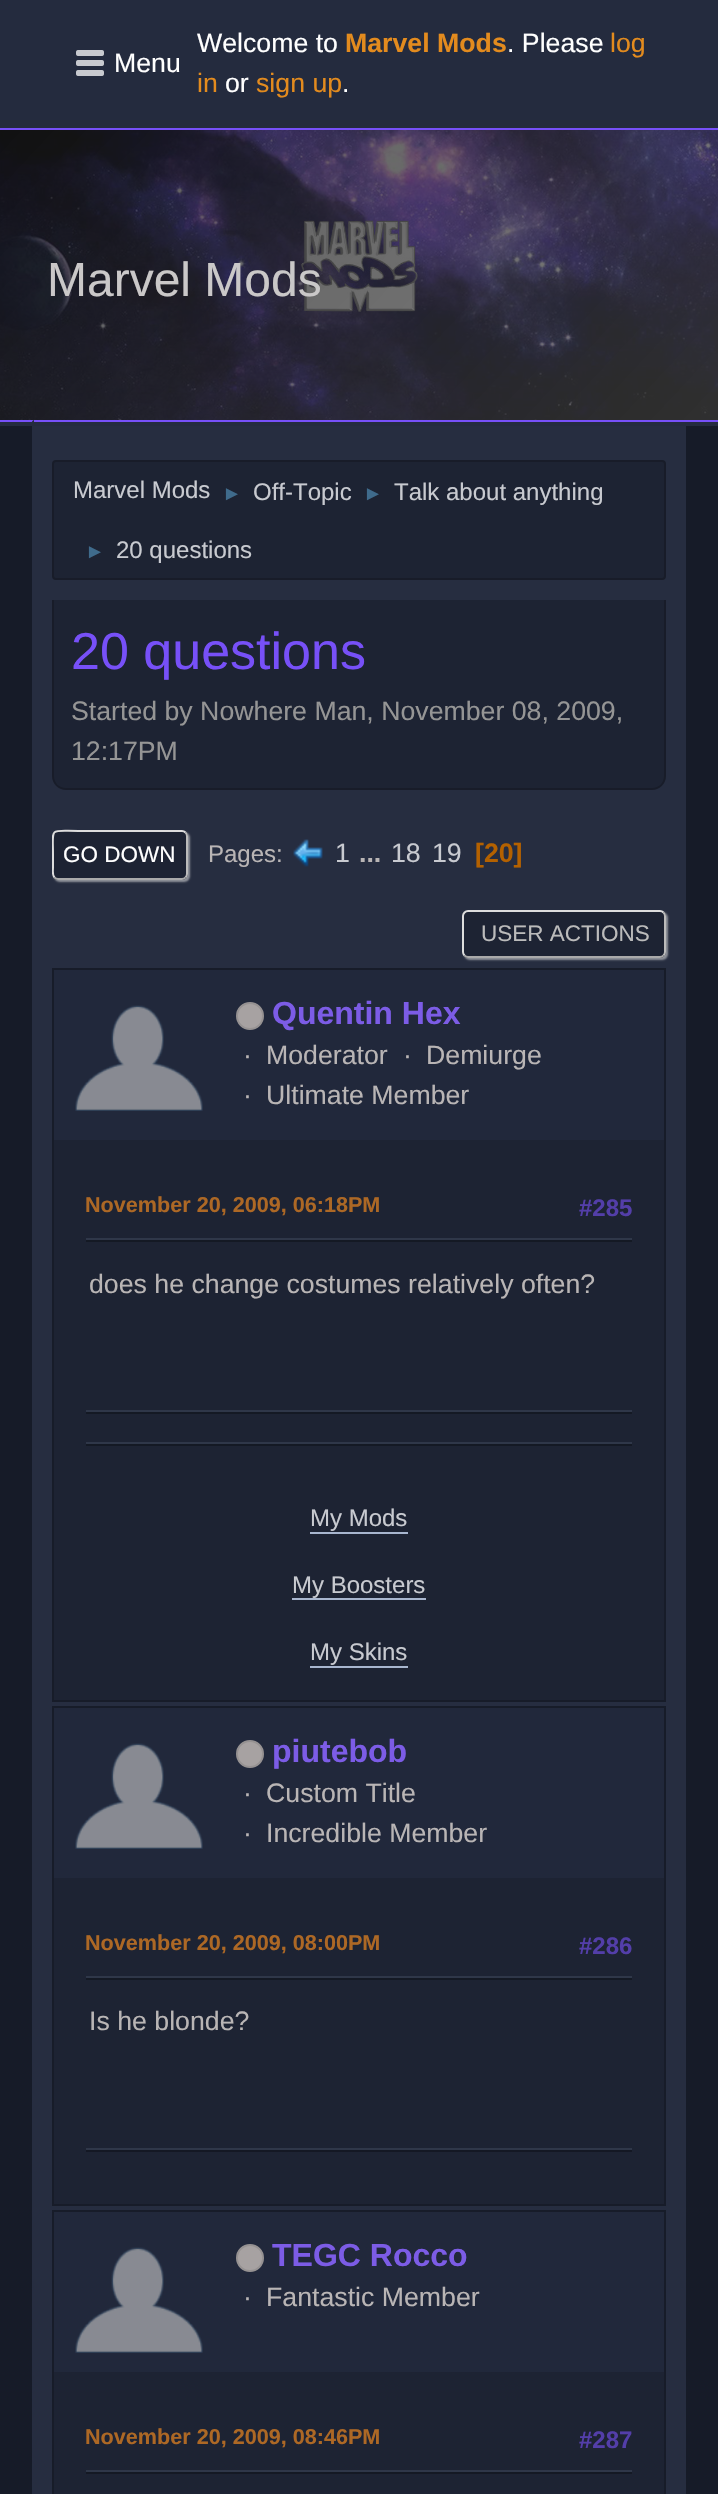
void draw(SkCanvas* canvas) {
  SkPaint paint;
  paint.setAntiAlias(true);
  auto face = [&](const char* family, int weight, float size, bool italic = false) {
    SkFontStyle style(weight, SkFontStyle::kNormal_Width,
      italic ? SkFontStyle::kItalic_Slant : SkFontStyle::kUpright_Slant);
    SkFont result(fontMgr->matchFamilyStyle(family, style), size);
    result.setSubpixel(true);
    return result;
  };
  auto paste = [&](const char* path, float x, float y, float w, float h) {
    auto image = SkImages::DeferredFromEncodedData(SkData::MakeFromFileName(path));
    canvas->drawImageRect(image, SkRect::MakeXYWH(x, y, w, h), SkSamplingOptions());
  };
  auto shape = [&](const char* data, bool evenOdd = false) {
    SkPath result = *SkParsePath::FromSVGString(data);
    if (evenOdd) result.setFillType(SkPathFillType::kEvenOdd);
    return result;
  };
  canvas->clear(0xff161b28);
  paint.setColor(0xff242b3e);
  canvas->drawRect(SkRect::MakeXYWH(0, 0, 718, 128), paint);
  paint.setColor(0xff7750f8);
  canvas->drawRect(SkRect::MakeXYWH(0, 128, 718, 2), paint);
  paste("img/1.png", 76, 50, 28, 26);
  paste("img/2.png", 0, 130, 718, 290);
  canvas->drawRect(SkRect::MakeXYWH(0, 420, 718, 2), paint);
  paint.setColor(0xff242b3e);
  canvas->drawRect(SkRect::MakeXYWH(0, 422, 718, 4), paint);
  canvas->drawPath(shape("M34 420H684C685 420 686 421 686 422H32C32 421 33 420 34 420Z"), paint);
  paint.setColor(0xff7750f8);
  canvas->drawRect(SkRect::MakeXYWH(34, 420, 652, 2), paint);
  paint.setColor(0xff262d40);
  canvas->drawRect(SkRect::MakeXYWH(32, 426, 654, 2068), paint);
  paint.setColor(0xff1d2333);
  canvas->drawRoundRect(SkRect::MakeXYWH(52, 460, 614, 120), 4, 4, paint);
  paint.setStroke(true);
  paint.setStrokeWidth(2);
  paint.setColor(0x33000000);
  canvas->drawRoundRect(SkRect::MakeXYWH(53, 461, 612, 118), 3, 3, paint);
  paint.setStroke(false);
  paint.setColor(0xff1d2333);
  canvas->drawPath(shape("M52 600H666V776C666 783.5 659.5 790 652 790H66C58.5 790 52 783.5 52 776Z"), paint);
  paint.setColor(0x33000000);
  canvas->drawPath(shape("M52 600H666V776C666 784 660 790 652 790H66C58 790 52 784 52 776ZM54 600H664V776C664 783 659 788 652 788H66C59 788 54 783 54 776Z", true), paint);
  paint.setColor(0x91dddddd);
  paint.setMaskFilter(SkMaskFilter::MakeBlur(kNormal_SkBlurStyle, 1));
  canvas->drawRoundRect(SkRect::MakeXYWH(54, 832, 136, 50), 6, 6, paint);
  paint.setMaskFilter(nullptr);
  paint.setColor(0xff1d2333);
  canvas->drawRoundRect(SkRect::MakeXYWH(52, 830, 136, 50), 6, 6, paint);
  paint.setStroke(true);
  paint.setColor(0xffbbbbbb);
  canvas->drawPath(shape("M185.5 832.5C186.5 833.5 187 834.5 187 836V874C187 875.5 186.5 876.5 185.5 877.5"), paint);
  paint.setColor(0xffaaaaaa);
  canvas->drawPath(shape("M185.5 877.5C184.5 878.5 183.5 879 182 879H58C56.5 879 55.5 878.5 54.5 877.5"), paint);
  canvas->save();
  canvas->clipRect(SkRect::MakeXYWH(52, 820, 614, 70));
  paint.setColor(0xffdddddd);
  canvas->drawPath(shape("M54.5 877.5C52 875 53 870.5 53 867.5V855C53 826.5 48.5 831 78.5 831H182C183.5 831 184.5 831.5 185.5 832.5"), paint);
  canvas->restore();
  paste("img/3.png", 293, 839, 30, 28);
  paint.setStroke(false);
  paint.setColor(0x91dddddd);
  paint.setMaskFilter(SkMaskFilter::MakeBlur(kNormal_SkBlurStyle, 1));
  canvas->drawRoundRect(SkRect::MakeXYWH(464, 912, 204, 48), 6, 6, paint);
  paint.setMaskFilter(nullptr);
  paint.setColor(0xff1d2333);
  canvas->drawRoundRect(SkRect::MakeXYWH(462, 910, 204, 48), 6, 6, paint);
  paint.setStroke(true);
  paint.setColor(0xffbbbbbb);
  canvas->drawPath(shape("M663.5 912.5C664.5 913.5 665 914.5 665 916V952C665 953.5 664.5 954.5 663.5 955.5"), paint);
  paint.setColor(0xffaaaaaa);
  canvas->drawPath(shape("M663.5 955.5C662.5 956.5 661.5 957 660 957H468C466.5 957 465.5 956.5 464.5 955.5"), paint);
  paint.setColor(0xffdddddd);
  canvas->drawPath(shape("M464.5 955.5C463.5 954.5 463 953.5 463 952V916C463 914.5 463.5 913.5 464.5 912.5C465.5 911.5 466.5 911 468 911H660C661.5 911 662.5 911.5 663.5 912.5"), paint);
  paint.setStroke(false);
  paint.setColor(0xff1d2333);
  canvas->drawRect(SkRect::MakeXYWH(54, 1140, 610, 560), paint);
  paint.setStroke(true);
  paint.setColor(0xff171c29);
  canvas->drawRect(SkRect::MakeXYWH(53, 969, 612, 732), paint);
  paint.setStroke(false);
  paint.setColor(0xff21283b);
  canvas->drawRect(SkRect::MakeXYWH(54, 970, 610, 170), paint);
  paste("img/4.png", 75, 1005, 128, 106);
  paint.setColor(0xffa7a2a2);
  canvas->drawCircle(250, 1016, 13, paint);
  paint.setStroke(true);
  paint.setColor(0xff969292);
  canvas->drawCircle(250, 1016, 13, paint);
  paint.setStroke(false);
  {
    const struct { float x, y, w, h; SkColor color; } items[] = {
      {86, 1240, 546, 2, 0xff141924},
      {86, 1238, 546, 2, 0xff2f3749},
      {86, 1412, 546, 2, 0xff141924},
      {86, 1410, 546, 2, 0xff2f3749},
      {86, 1444, 546, 2, 0xff141924},
      {86, 1442, 546, 2, 0xff2f3749},
      {310, 1532, 98, 2, 0xffa8b6cf},
      {292, 1598, 134, 2, 0xffa8b6cf},
      {310, 1666, 98, 2, 0xffa8b6cf},
      {54, 1878, 610, 326, 0xff1d2333},
    };
    for (auto [x, y, w, h, color] : items) {
      paint.setColor(color);
      canvas->drawRect(SkRect::MakeXYWH(x, y, w, h), paint);
    }
  }
  paint.setStroke(true);
  paint.setColor(0xff171c29);
  canvas->drawRect(SkRect::MakeXYWH(53, 1707, 612, 498), paint);
  paint.setStroke(false);
  paint.setColor(0xff21283b);
  canvas->drawRect(SkRect::MakeXYWH(54, 1708, 610, 170), paint);
  paste("img/4.png", 75, 1743, 128, 106);
  paint.setColor(0xffa7a2a2);
  canvas->drawCircle(250, 1754, 13, paint);
  paint.setStroke(true);
  paint.setColor(0xff969292);
  canvas->drawCircle(250, 1754, 13, paint);
  paint.setStroke(false);
  {
    const struct { float x, y, w, h; SkColor color; } items[] = {
      {86, 1978, 546, 2, 0xff141924},
      {86, 1976, 546, 2, 0xff2f3749},
      {86, 2150, 546, 2, 0xff141824},
      {86, 2148, 546, 2, 0xff2f3749},
      {54, 2372, 610, 122, 0xff1d2333},
    };
    for (auto [x, y, w, h, color] : items) {
      paint.setColor(color);
      canvas->drawRect(SkRect::MakeXYWH(x, y, w, h), paint);
    }
  }
  paint.setStroke(true);
  paint.setColor(0xff171c29);
  canvas->drawRect(SkRect::MakeXYWH(53, 2211, 612, 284), paint);
  paint.setStroke(false);
  paint.setColor(0xff21283b);
  canvas->drawRect(SkRect::MakeXYWH(54, 2212, 610, 160), paint);
  paste("img/4.png", 75, 2247, 128, 106);
  paint.setColor(0xffa7a2a2);
  canvas->drawCircle(250, 2258, 13, paint);
  paint.setStroke(true);
  paint.setColor(0xff969292);
  canvas->drawCircle(250, 2258, 13, paint);
  paint.setStroke(false);
  paint.setColor(0xff141924);
  canvas->drawRect(SkRect::MakeXYWH(86, 2472, 546, 2), paint);
  paint.setColor(0xff2f3749);
  canvas->drawRect(SkRect::MakeXYWH(86, 2470, 546, 2), paint);
  auto f0 = face("Liberation Sans", 400, 26.7f);
  paint.setColor(0xffffffff);
  canvas->drawString("Menu", 114, 72, f0, paint);
  canvas->drawString("Welcome to", 197, 52, f0, paint);
  auto f1 = face("Liberation Sans", 700, 26.7f);
  paint.setColor(0xffe38b1e);
  canvas->drawString("Marvel Mods", 345, 52, f1, paint);
  paint.setColor(0xffffffff);
  canvas->drawString(". Please", 507, 52, f0, paint);
  paint.setColor(0xffe38b1e);
  canvas->drawString("log", 610, 52, f0, paint);
  canvas->drawString("in", 197, 92, f0, paint);
  paint.setColor(0xffffffff);
  canvas->drawString("or", 225, 92, f0, paint);
  paint.setColor(0xffe38b1e);
  canvas->drawString("sign up", 256, 92, f0, paint);
  paint.setColor(0xffffffff);
  canvas->drawString(".", 342, 92, f0, paint);
  auto f2 = face("Liberation Sans", 400, 48);
  paint.setColor(0xffcac8c8);
  canvas->drawString("Marvel Mods", 47, 296, f2, paint);
  auto f3 = face("Liberation Sans", 400, 24);
  paint.setColor(0xffc8cad0);
  canvas->drawString("Marvel Mods", 73, 498, f3, paint);
  auto f4 = face("Liberation Sans", 400, 20);
  paint.setColor(0xff3f6b8c);
  canvas->drawString("►", 222, 500, f4, paint);
  paint.setColor(0xffc8cad0);
  canvas->drawString("Off-Topic", 253, 500, f3, paint);
  paint.setColor(0xff3f6b8c);
  canvas->drawString("►", 363, 500, f4, paint);
  paint.setColor(0xffc8cad0);
  canvas->drawString("Talk about anything", 394, 500, f3, paint);
  paint.setColor(0xff3f6b8c);
  canvas->drawString("►", 85, 558, f4, paint);
  paint.setColor(0xffc8cad0);
  canvas->drawString("20 questions", 116, 558, f3, paint);
  auto f5 = face("Liberation Sans", 400, 52);
  paint.setColor(0xff7750f8);
  canvas->drawString("20 questions", 71, 669, f5, paint);
  paint.setColor(0xff959595);
  canvas->drawString("Started by Nowhere Man, November 08, 2009,", 71, 720, f0, paint);
  canvas->drawString("12:17PM", 71, 760, f0, paint);
  auto f6 = face("Liberation Sans", 400, 22.5f);
  paint.setColor(0xffffffff);
  canvas->drawString("GO DOWN", 63, 862, f6, paint);
  paint.setColor(0xffb9b5b5);
  canvas->drawString("Pages:", 208, 862, f3, paint);
  paint.setColor(0xffc8cad0);
  canvas->drawString("1", 335, 862, f0, paint);
  paint.setColor(0xffb9b5b5);
  canvas->drawString("...", 359, 862, f1, paint);
  paint.setColor(0xffc8cad0);
  canvas->drawString("18", 391, 862, f0, paint);
  canvas->drawString("19", 432, 862, f0, paint);
  paint.setColor(0xffb46100);
  canvas->drawString("[20]", 475, 862, f1, paint);
  paint.setColor(0xffbbbbbb);
  canvas->drawString("USER ACTIONS", 481, 941, f6, paint);
  auto f7 = face("Liberation Sans", 700, 32);
  paint.setColor(0xff7c5ce6);
  canvas->drawString("Quentin Hex", 272, 1024, f7, paint);
  paint.setColor(0xffb9b5b5);
  {
    const struct { const char* s; float x, y; } items[] = {
      {"·", 243, 1064},
      {"Moderator", 266, 1064},
      {"·", 403, 1064},
      {"Demiurge", 426, 1064},
      {"·", 243, 1104},
      {"Ultimate Member", 266, 1104},
    };
    for (auto [s, x, y] : items) {
      canvas->drawString(s, x, y, f0, paint);
    }
  }
  auto f8 = face("Liberation Sans", 700, 21.6f);
  paint.setColor(0xffad6825);
  canvas->drawString("November 20, 2009, 06:18PM", 85, 1212, f8, paint);
  auto f9 = face("Liberation Sans", 700, 24);
  paint.setColor(0xff533ea9);
  canvas->drawString("#285", 579, 1216, f9, paint);
  paint.setColor(0xffb9b5b5);
  canvas->drawString("does he change costumes relatively often?", 89, 1293, f0, paint);
  paint.setColor(0xffc8cad0);
  {
    const struct { const char* s; float x, y; } items[] = {
      {"My Mods", 310, 1526},
      {"My Boosters", 292, 1593},
      {"My Skins", 310, 1660},
    };
    for (auto [s, x, y] : items) {
      canvas->drawString(s, x, y, f3, paint);
    }
  }
  paint.setColor(0xff7c5ce6);
  canvas->drawString("piutebob", 272, 1762, f7, paint);
  paint.setColor(0xffb9b5b5);
  {
    const struct { const char* s; float x, y; } items[] = {
      {"·", 243, 1802},
      {"Custom Title", 266, 1802},
      {"·", 243, 1842},
      {"Incredible Member", 266, 1842},
    };
    for (auto [s, x, y] : items) {
      canvas->drawString(s, x, y, f0, paint);
    }
  }
  paint.setColor(0xffad6825);
  canvas->drawString("November 20, 2009, 08:00PM", 85, 1950, f8, paint);
  paint.setColor(0xff533ea9);
  canvas->drawString("#286", 579, 1954, f9, paint);
  paint.setColor(0xffb9b5b5);
  canvas->drawString("Is he blonde?", 89, 2030, f0, paint);
  paint.setColor(0xff7c5ce6);
  canvas->drawString("TEGC Rocco", 272, 2266, f7, paint);
  paint.setColor(0xffb9b5b5);
  canvas->drawString("·", 243, 2306, f0, paint);
  canvas->drawString("Fantastic Member", 266, 2306, f0, paint);
  paint.setColor(0xffad6825);
  canvas->drawString("November 20, 2009, 08:46PM", 85, 2444, f8, paint);
  paint.setColor(0xff533ea9);
  canvas->drawString("#287", 579, 2448, f9, paint);
}
